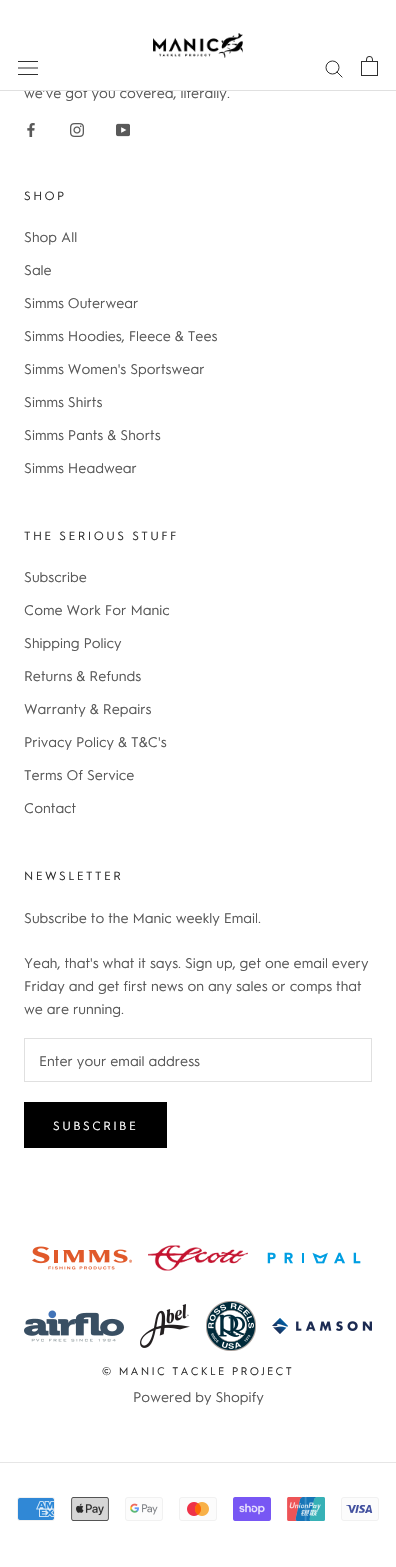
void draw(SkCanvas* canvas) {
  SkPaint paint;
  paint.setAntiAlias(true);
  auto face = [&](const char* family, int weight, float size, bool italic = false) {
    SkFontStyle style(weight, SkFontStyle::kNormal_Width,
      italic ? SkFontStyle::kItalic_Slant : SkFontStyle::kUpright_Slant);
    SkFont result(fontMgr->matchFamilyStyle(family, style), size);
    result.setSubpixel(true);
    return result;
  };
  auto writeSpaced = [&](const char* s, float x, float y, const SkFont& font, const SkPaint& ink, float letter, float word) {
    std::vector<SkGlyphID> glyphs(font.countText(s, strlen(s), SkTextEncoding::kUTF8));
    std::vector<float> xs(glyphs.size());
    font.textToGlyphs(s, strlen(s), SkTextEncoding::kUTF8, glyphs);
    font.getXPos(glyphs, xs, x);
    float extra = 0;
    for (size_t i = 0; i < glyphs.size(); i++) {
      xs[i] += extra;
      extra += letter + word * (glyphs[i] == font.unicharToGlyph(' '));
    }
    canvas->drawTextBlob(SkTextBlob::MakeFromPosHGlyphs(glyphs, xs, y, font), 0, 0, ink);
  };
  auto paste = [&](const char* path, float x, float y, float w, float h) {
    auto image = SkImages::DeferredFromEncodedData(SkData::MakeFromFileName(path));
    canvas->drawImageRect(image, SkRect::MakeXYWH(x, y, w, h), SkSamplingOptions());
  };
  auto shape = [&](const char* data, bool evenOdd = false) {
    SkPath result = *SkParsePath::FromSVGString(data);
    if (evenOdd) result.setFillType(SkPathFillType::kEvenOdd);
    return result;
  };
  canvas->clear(0xffffffff);
  paste("img/1.png", 153, 33, 90, 25);
  paste("img/2.png", 18, 61, 20, 14);
  paint.setStroke(true);
  paint.setStrokeWidth(1);
  paint.setStrokeCap(SkPaint::kSquare_Cap);
  paint.setColor(0xff303030);
  canvas->drawPath(shape("M342 77L337 72"), paint);
  paint.setStrokeCap(SkPaint::kButt_Cap);
  canvas->drawCircle(332.5f, 67.5f, 6.5f, paint);
  paste("img/3.png", 361, 56, 17, 20);
  paste("img/4.png", 27, 123, 8, 14);
  paste("img/5.png", 70, 123, 14, 14);
  paste("img/6.png", 116, 123, 14, 14);
  paint.setColor(0xffe0e0e0);
  canvas->drawRect(SkRect::MakeXYWH(24.5f, 1038.5f, 347, 43), paint);
  paint.setColor(0xff000000);
  canvas->drawRect(SkRect::MakeXYWH(24.5f, 1102.5f, 142, 45), paint);
  paint.setStroke(false);
  canvas->drawRect(SkRect::MakeXYWH(25, 1103, 141, 44), paint);
  paste("img/7.png", 32, 1246, 100, 24);
  paste("img/8.png", 148, 1245, 100, 26);
  paste("img/9.png", 267, 1252, 94, 12);
  paste("img/10.png", 24, 1310, 100, 32);
  paste("img/11.png", 140, 1304, 50, 44);
  paste("img/12.png", 206, 1301, 50, 50);
  paste("img/13.png", 272, 1318, 100, 16);
  paint.setColor(0xffe6e6e6);
  canvas->drawRect(SkRect::MakeXYWH(0, 1462, 396, 1), paint);
  paste("img/14.png", 17, 1497, 38, 24);
  paste("img/15.png", 71, 1497, 38, 24);
  paste("img/16.png", 125, 1497, 38, 24);
  paste("img/17.png", 179, 1497, 38, 24);
  paste("img/18.png", 233, 1497, 38, 24);
  paste("img/19.png", 287, 1497, 38, 24);
  paste("img/20.png", 341, 1497, 38, 24);
  auto f0 = face("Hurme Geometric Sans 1", 400, 14);
  paint.setColor(0xff595959);
  canvas->drawString("we’ve got you covered, literally.", 24, 98, f0, paint);
  paint.setColor(0xffe0e0e0);
  canvas->drawRect(SkRect::MakeXYWH(0, 90, 396, 1), paint);
  paint.setColor(0xffffffff);
  canvas->drawRect(SkRect::MakeXYWH(43, 88, 176, 2), paint);
  auto f1 = face("Hurme Geometric Sans 1", 400, 12);
  paint.setColor(0xff303030);
  writeSpaced("SHOP", 24, 200, f1, paint, 2.4f, 0);
  paint.setColor(0xff595959);
  {
    const struct { const char* s; float x, y; } items[] = {
      {"Shop All", 24, 242},
      {"Sale", 24, 275},
      {"Simms Outerwear", 24, 308},
      {"Simms Hoodies, Fleece & Tees", 24, 341},
      {"Simms Women's Sportswear", 24, 374},
      {"Simms Shirts", 24, 407},
      {"Simms Pants & Shorts", 24, 440},
      {"Simms Headwear", 24, 473},
    };
    for (auto [s, x, y] : items) {
      canvas->drawString(s, x, y, f0, paint);
    }
  }
  paint.setColor(0xff303030);
  writeSpaced("THE SERIOUS STUFF", 24, 540, f1, paint, 2.4f, 0);
  paint.setColor(0xff595959);
  {
    const struct { const char* s; float x, y; } items[] = {
      {"Subscribe", 24, 582},
      {"Come Work For Manic", 24, 615},
      {"Shipping Policy", 24, 648},
      {"Returns & Refunds", 24, 681},
      {"Warranty & Repairs", 24, 714},
      {"Privacy Policy & T&C's", 24, 747},
      {"Terms Of Service", 24, 780},
      {"Contact", 24, 813},
    };
    for (auto [s, x, y] : items) {
      canvas->drawString(s, x, y, f0, paint);
    }
  }
  paint.setColor(0xff303030);
  writeSpaced("NEWSLETTER", 24, 880, f1, paint, 2.4f, 0);
  paint.setColor(0xff595959);
  {
    const struct { const char* s; float x, y; } items[] = {
      {"Subscribe to the Manic weekly Email.", 24, 923},
      {"Yeah, that's what it says. Sign up, get one email every", 24, 968},
      {"Friday and get first news on any sales or comps that", 24, 991},
      {"we are running.", 24, 1014},
      {"Enter your email address", 39, 1066},
    };
    for (auto [s, x, y] : items) {
      canvas->drawString(s, x, y, f0, paint);
    }
  }
  paint.setColor(0xffffffff);
  writeSpaced("SUBSCRIBE", 53, 1130, f1, paint, 2.4f, 0);
  auto f2 = face("Hurme Geometric Sans 1", 400, 11);
  paint.setColor(0xff303030);
  writeSpaced("© MANIC TACKLE PROJECT", 102, 1375, f2, paint, 2.2f, 0);
  paint.setColor(0xff595959);
  canvas->drawString("Powered by Shopify", 133, 1402, f0, paint);
}
